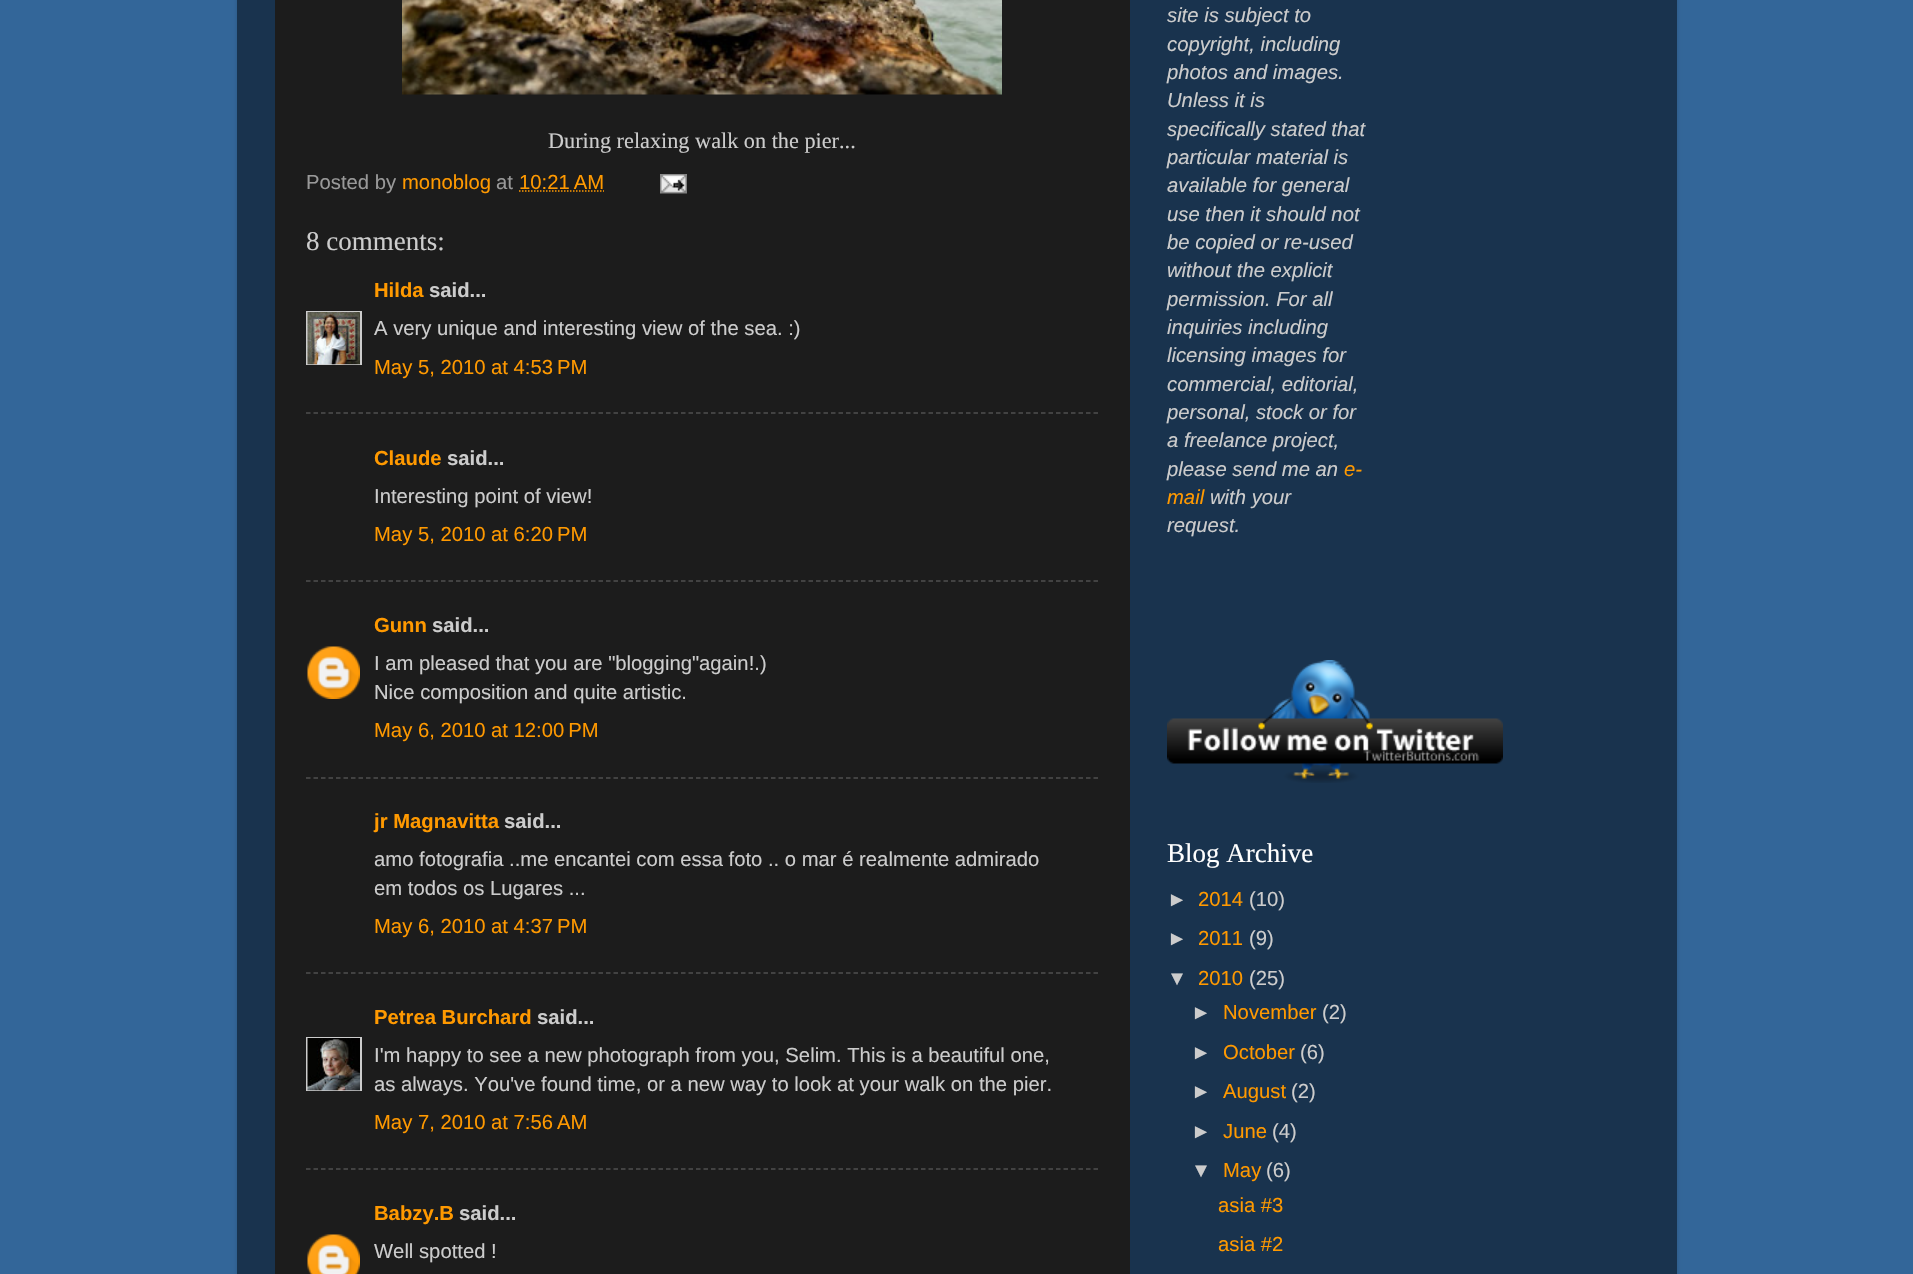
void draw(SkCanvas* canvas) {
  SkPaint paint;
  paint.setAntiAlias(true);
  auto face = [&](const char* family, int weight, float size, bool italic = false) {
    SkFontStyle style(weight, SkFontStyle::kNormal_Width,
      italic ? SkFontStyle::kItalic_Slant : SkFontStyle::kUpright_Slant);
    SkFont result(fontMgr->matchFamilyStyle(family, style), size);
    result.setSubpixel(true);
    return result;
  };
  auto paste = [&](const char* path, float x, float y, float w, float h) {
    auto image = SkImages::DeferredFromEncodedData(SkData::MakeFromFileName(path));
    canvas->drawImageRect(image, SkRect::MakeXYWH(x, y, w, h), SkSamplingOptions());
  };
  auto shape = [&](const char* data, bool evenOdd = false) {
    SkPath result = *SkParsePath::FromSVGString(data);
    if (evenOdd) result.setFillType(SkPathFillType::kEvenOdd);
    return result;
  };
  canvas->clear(0xff336699);
  paint.setColor(0x26000000);
  paint.setMaskFilter(SkMaskFilter::MakeBlur(kNormal_SkBlurStyle, 2));
  canvas->drawRect(SkRect::MakeXYWH(237, -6, 1440, 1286), paint);
  paint.setMaskFilter(nullptr);
  paint.setColor(0xff19334e);
  canvas->drawRect(SkRect::MakeXYWH(237, 0, 1440, 1274), paint);
  paint.setColor(0xff1c1c1c);
  canvas->drawRect(SkRect::MakeXYWH(275, 0, 855, 1274), paint);
  paste("img/1.png", 402, 0, 600, 95);
  paint.setStroke(true);
  paint.setStrokeWidth(1.5f);
  paint.setColor(0xffff9900);
  paint.setPathEffect(SkDashPathEffect::Make({{1.5f, 1.5f}}, 0));
  canvas->drawPath(shape("M519 191H604"), paint);
  paint.setPathEffect(nullptr);
  paste("img/2.png", 660, 174, 27, 20);
  canvas->save();
  canvas->clipRect(SkRect::MakeXYWH(306, 311, 56, 54));
  paint.setStrokeWidth(2);
  paint.setColor(0xffcccccc);
  canvas->drawRect(SkRect::MakeXYWH(307, 312, 54, 53), paint);
  canvas->restore();
  paste("img/3.png", 307, 312, 53, 53);
  paint.setStrokeWidth(1.5f);
  paint.setColor(0xff4e4e4e);
  paint.setPathEffect(SkDashPathEffect::Make({{4.5f, 3}}, 0));
  canvas->drawPath(shape("M306 413H1098"), paint);
  paint.setPathEffect(nullptr);
  paint.setPathEffect(SkDashPathEffect::Make({{4.5f, 3}}, 0));
  canvas->drawPath(shape("M306 581H1098"), paint);
  paint.setPathEffect(nullptr);
  paste("img/4.png", 307, 646, 53, 53);
  paint.setPathEffect(SkDashPathEffect::Make({{4.5f, 3}}, 0));
  canvas->drawPath(shape("M306 778H1098"), paint);
  paint.setPathEffect(nullptr);
  paint.setPathEffect(SkDashPathEffect::Make({{4.5f, 3}}, 0));
  canvas->drawPath(shape("M306 973H1098"), paint);
  paint.setPathEffect(nullptr);
  canvas->save();
  canvas->clipRect(SkRect::MakeXYWH(306, 1037, 56, 54));
  paint.setStrokeWidth(2);
  paint.setColor(0xffcccccc);
  canvas->drawRect(SkRect::MakeXYWH(307, 1038, 54, 53), paint);
  canvas->restore();
  paste("img/5.png", 307, 1038, 53, 53);
  paint.setStrokeWidth(1.5f);
  paint.setColor(0xff4e4e4e);
  paint.setPathEffect(SkDashPathEffect::Make({{4.5f, 3}}, 0));
  canvas->drawPath(shape("M306 1169H1098"), paint);
  paint.setPathEffect(nullptr);
  paste("img/6.png", 307, 1234, 53, 40);
  paste("img/7.png", 1167, 660, 336, 123);
  auto f0 = face("Liberation Serif", 400, 22.25f);
  paint.setStroke(false);
  paint.setColor(0xffcccccc);
  canvas->drawString("During relaxing walk on the pier...", 548, 148, f0, paint);
  auto f1 = face("Liberation Sans", 400, 20.25f);
  paint.setColor(0xff999999);
  canvas->drawString("Posted by", 306, 189, f1, paint);
  paint.setColor(0xffff9900);
  canvas->drawString("monoblog", 402, 189, f1, paint);
  paint.setColor(0xff999999);
  canvas->drawString("at", 496, 189, f1, paint);
  paint.setColor(0xffff9900);
  canvas->drawString("10:21 AM", 519, 189, f1, paint);
  auto f2 = face("Liberation Serif", 400, 27);
  paint.setColor(0xffcccccc);
  canvas->drawString("8 comments:", 306, 250, f2, paint);
  auto f3 = face("Liberation Sans", 700, 20.25f);
  paint.setColor(0xffff9900);
  canvas->drawString("Hilda", 374, 297, f3, paint);
  paint.setColor(0xffcccccc);
  canvas->drawString("said...", 429, 297, f3, paint);
  canvas->drawString("A very unique and interesting view of the sea. :)", 374, 335, f1, paint);
  paint.setColor(0xffff9900);
  canvas->drawString("May 5, 2010 at 4:53 PM", 374, 374, f1, paint);
  canvas->drawString("Claude", 374, 465, f3, paint);
  paint.setColor(0xffcccccc);
  canvas->drawString("said...", 447, 465, f3, paint);
  canvas->drawString("Interesting point of view!", 374, 503, f1, paint);
  paint.setColor(0xffff9900);
  canvas->drawString("May 5, 2010 at 6:20 PM", 374, 541, f1, paint);
  canvas->drawString("Gunn", 374, 632, f3, paint);
  paint.setColor(0xffcccccc);
  canvas->drawString("said...", 432, 632, f3, paint);
  canvas->drawString("I am pleased that you are \"blogging\"again!.)", 374, 670, f1, paint);
  canvas->drawString("Nice composition and quite artistic.", 374, 699, f1, paint);
  paint.setColor(0xffff9900);
  canvas->drawString("May 6, 2010 at 12:00 PM", 374, 737, f1, paint);
  canvas->drawString("jr Magnavitta", 374, 828, f3, paint);
  paint.setColor(0xffcccccc);
  canvas->drawString("said...", 504, 828, f3, paint);
  canvas->drawString("amo fotografia ..me encantei com essa foto .. o mar é realmente admirado", 374, 866, f1, paint);
  canvas->drawString("em todos os Lugares ...", 374, 895, f1, paint);
  paint.setColor(0xffff9900);
  canvas->drawString("May 6, 2010 at 4:37 PM", 374, 933, f1, paint);
  canvas->drawString("Petrea Burchard", 374, 1024, f3, paint);
  paint.setColor(0xffcccccc);
  canvas->drawString("said...", 537, 1024, f3, paint);
  canvas->drawString("I'm happy to see a new photograph from you, Selim. This is a beautiful one,", 374, 1062, f1, paint);
  canvas->drawString("as always. You've found time, or a new way to look at your walk on the pier.", 374, 1091, f1, paint);
  paint.setColor(0xffff9900);
  canvas->drawString("May 7, 2010 at 7:56 AM", 374, 1129, f1, paint);
  canvas->drawString("Babzy.B", 374, 1220, f3, paint);
  paint.setColor(0xffcccccc);
  canvas->drawString("said...", 459, 1220, f3, paint);
  canvas->drawString("Well spotted !", 374, 1258, f1, paint);
  auto f4 = face("Liberation Sans", 400, 20.25f, true);
  {
    const struct { const char* s; float x, y; } items[] = {
      {"site is subject to", 1167, 22},
      {"copyright, including", 1167, 51},
      {"photos and images.", 1167, 79},
      {"Unless it is", 1167, 107},
      {"specifically stated that", 1167, 136},
      {"particular material is", 1167, 164},
      {"available for general", 1167, 192},
      {"use then it should not", 1167, 221},
      {"be copied or re-used", 1167, 249},
      {"without the explicit", 1167, 277},
      {"permission. For all", 1167, 306},
      {"inquiries including", 1167, 334},
      {"licensing images for", 1167, 362},
      {"commercial, editorial,", 1167, 391},
      {"personal, stock or for", 1167, 419},
      {"a freelance project,", 1167, 447},
      {"please send me an", 1167, 476},
    };
    for (auto [s, x, y] : items) {
      canvas->drawString(s, x, y, f4, paint);
    }
  }
  paint.setColor(0xffff9900);
  canvas->drawString("e-", 1344, 476, f4, paint);
  canvas->drawString("mail", 1167, 504, f4, paint);
  paint.setColor(0xffcccccc);
  canvas->drawString("with your", 1210, 504, f4, paint);
  canvas->drawString("request.", 1167, 532, f4, paint);
  paint.setColor(0xffffffff);
  canvas->drawString("Blog Archive", 1167, 862, f2, paint);
  paint.setColor(0xffcccccc);
  canvas->drawString("►", 1167, 906, f1, paint);
  paint.setColor(0xffff9900);
  canvas->drawString("2014", 1198, 906, f1, paint);
  paint.setColor(0xffcccccc);
  canvas->drawString("(10)", 1249, 906, f1, paint);
  canvas->drawString("►", 1167, 945, f1, paint);
  paint.setColor(0xffff9900);
  canvas->drawString("2011", 1198, 945, f1, paint);
  paint.setColor(0xffcccccc);
  canvas->drawString("(9)", 1249, 945, f1, paint);
  canvas->drawString("▼", 1167, 985, f1, paint);
  paint.setColor(0xffff9900);
  canvas->drawString("2010", 1198, 985, f1, paint);
  paint.setColor(0xffcccccc);
  canvas->drawString("(25)", 1249, 985, f1, paint);
  canvas->drawString("►", 1191, 1019, f1, paint);
  paint.setColor(0xffff9900);
  canvas->drawString("November", 1223, 1019, f1, paint);
  paint.setColor(0xffcccccc);
  canvas->drawString("(2)", 1322, 1019, f1, paint);
  canvas->drawString("►", 1191, 1059, f1, paint);
  paint.setColor(0xffff9900);
  canvas->drawString("October", 1223, 1059, f1, paint);
  paint.setColor(0xffcccccc);
  canvas->drawString("(6)", 1300, 1059, f1, paint);
  canvas->drawString("►", 1191, 1098, f1, paint);
  paint.setColor(0xffff9900);
  canvas->drawString("August", 1223, 1098, f1, paint);
  paint.setColor(0xffcccccc);
  canvas->drawString("(2)", 1291, 1098, f1, paint);
  canvas->drawString("►", 1191, 1138, f1, paint);
  paint.setColor(0xffff9900);
  canvas->drawString("June", 1223, 1138, f1, paint);
  paint.setColor(0xffcccccc);
  canvas->drawString("(4)", 1272, 1138, f1, paint);
  canvas->drawString("▼", 1191, 1177, f1, paint);
  paint.setColor(0xffff9900);
  canvas->drawString("May", 1223, 1177, f1, paint);
  paint.setColor(0xffcccccc);
  canvas->drawString("(6)", 1266, 1177, f1, paint);
  paint.setColor(0xffff9900);
  canvas->drawString("asia #3", 1218, 1212, f1, paint);
  canvas->drawString("asia #2", 1218, 1251, f1, paint);
}
